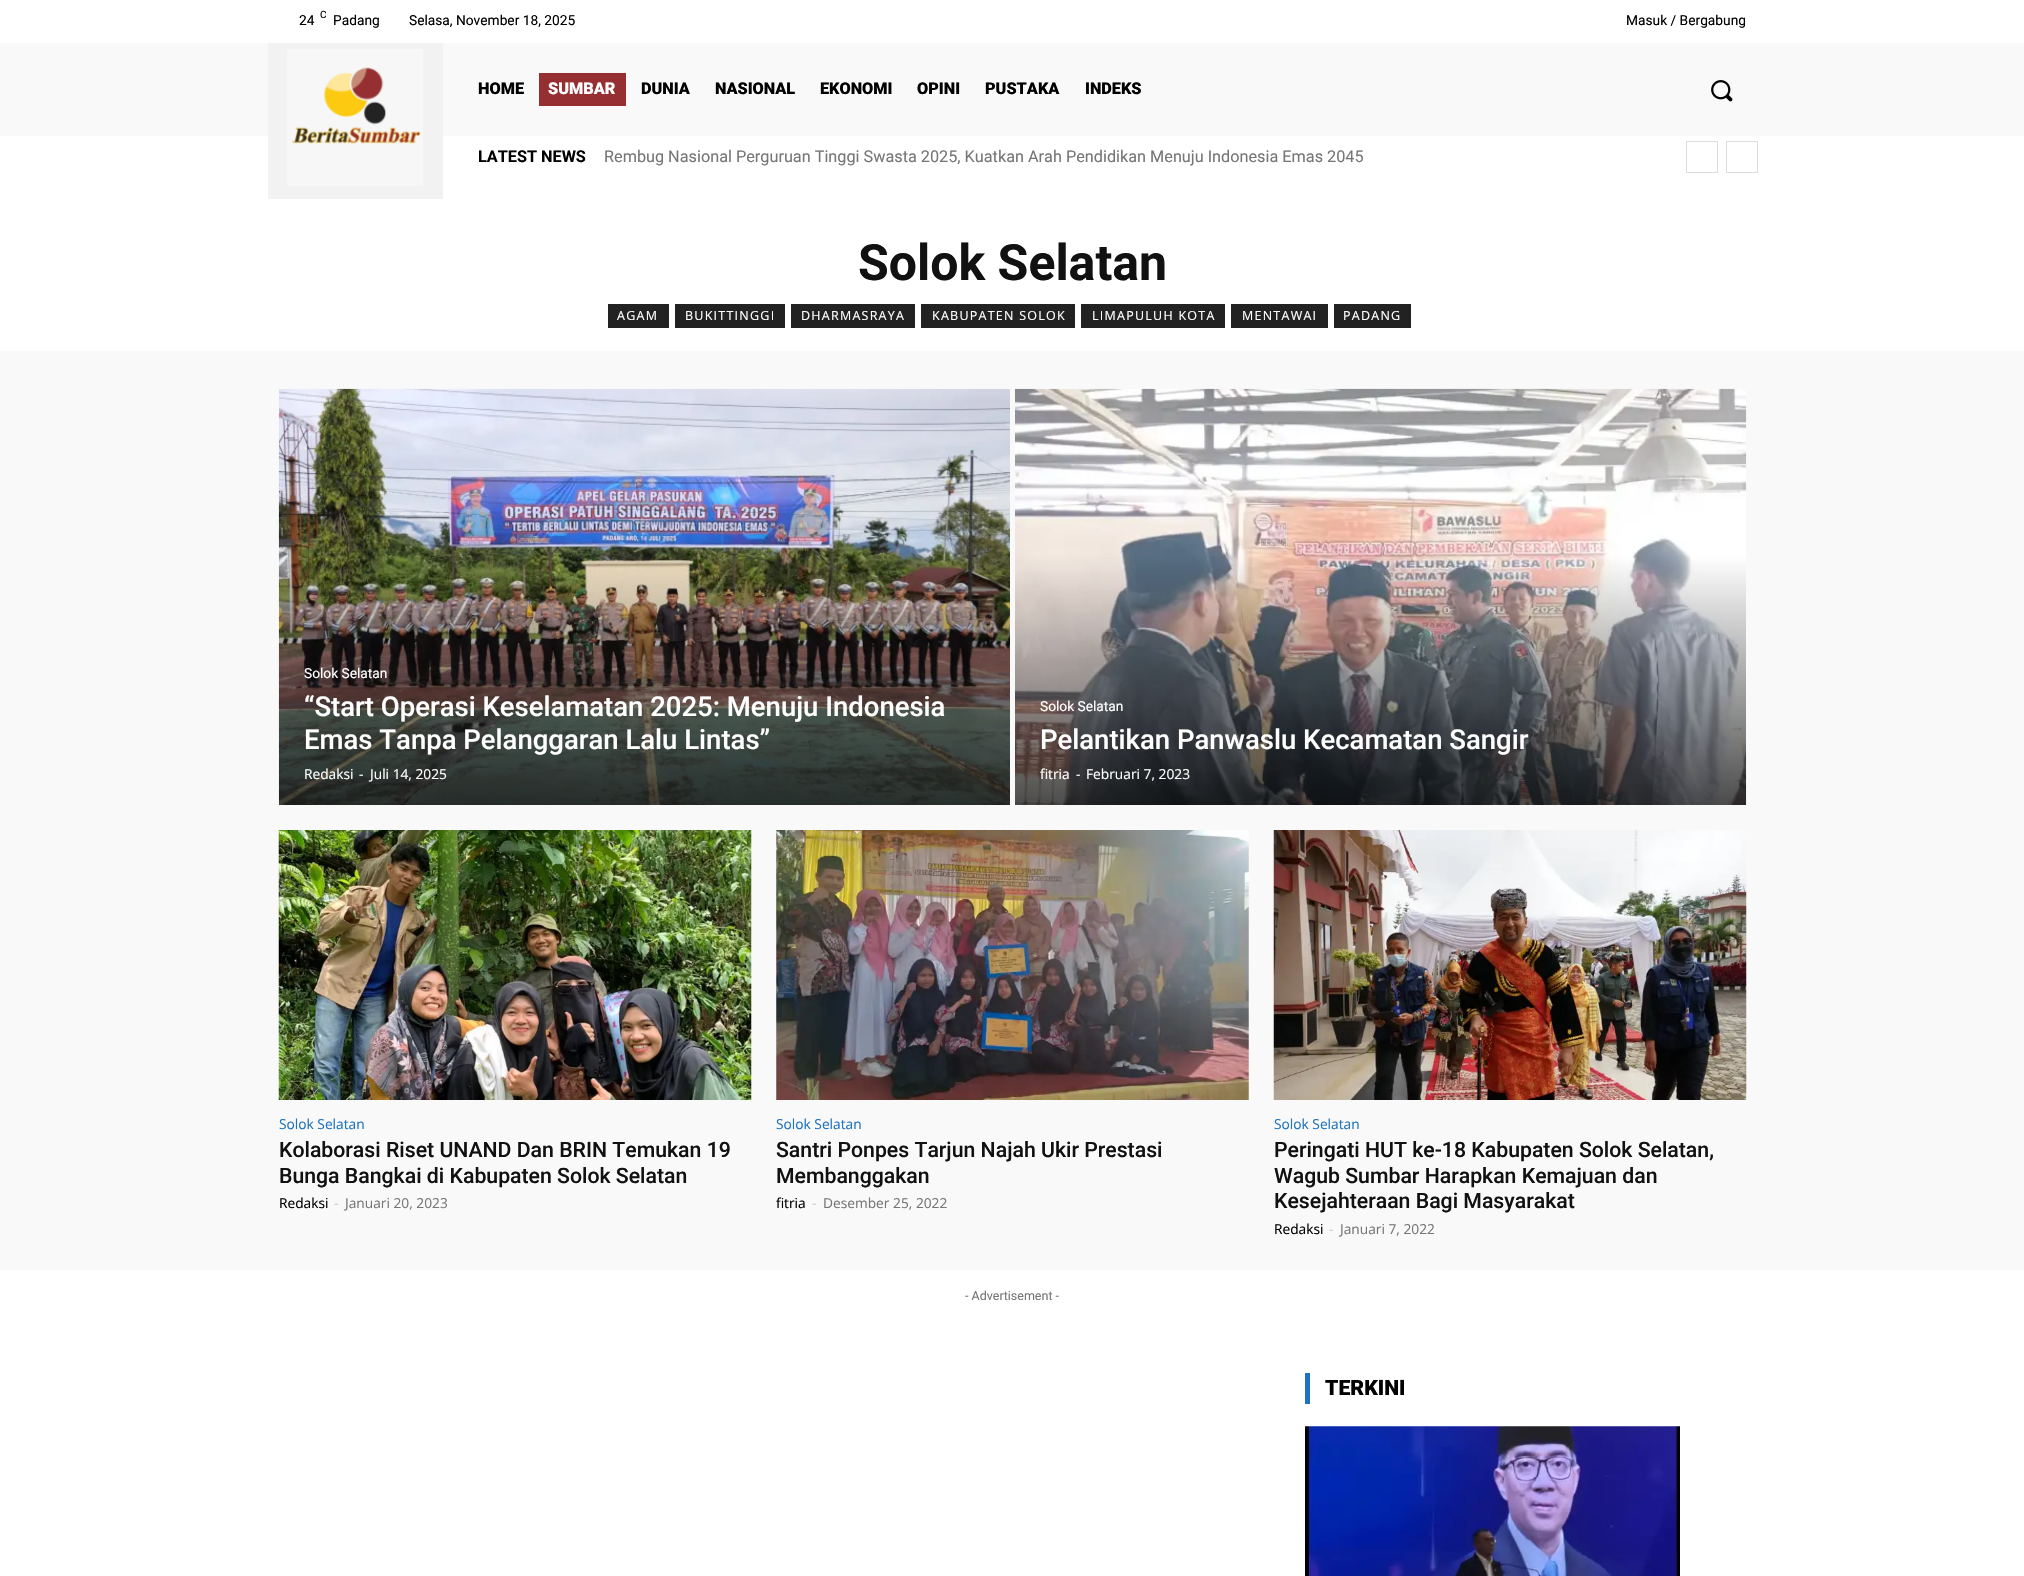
void draw(SkCanvas* canvas) {
  SkPaint paint;
  paint.setAntiAlias(true);
  auto face = [&](const char* family, int weight, float size, bool italic = false) {
    SkFontStyle style(weight, SkFontStyle::kNormal_Width,
      italic ? SkFontStyle::kItalic_Slant : SkFontStyle::kUpright_Slant);
    SkFont result(fontMgr->matchFamilyStyle(family, style), size);
    result.setSubpixel(true);
    return result;
  };
  auto writeSpaced = [&](const char* s, float x, float y, const SkFont& font, const SkPaint& ink, float letter, float word) {
    std::vector<SkGlyphID> glyphs(font.countText(s, strlen(s), SkTextEncoding::kUTF8));
    std::vector<float> xs(glyphs.size());
    font.textToGlyphs(s, strlen(s), SkTextEncoding::kUTF8, glyphs);
    font.getXPos(glyphs, xs, x);
    float extra = 0;
    for (size_t i = 0; i < glyphs.size(); i++) {
      xs[i] += extra;
      extra += letter + word * (glyphs[i] == font.unicharToGlyph(' '));
    }
    canvas->drawTextBlob(SkTextBlob::MakeFromPosHGlyphs(glyphs, xs, y, font), 0, 0, ink);
  };
  auto paste = [&](const char* path, float x, float y, float w, float h) {
    auto image = SkImages::DeferredFromEncodedData(SkData::MakeFromFileName(path));
    canvas->drawImageRect(image, SkRect::MakeXYWH(x, y, w, h), SkSamplingOptions());
  };
  canvas->clear(0xffffffff);
  paint.setColor(0xfff9f9f9);
  canvas->drawRect(SkRect::MakeXYWH(0, 43, 2024, 93), paint);
  paint.setColor(0xfff2f2f2);
  canvas->drawRect(SkRect::MakeXYWH(268, 43, 175, 156), paint);
  paste("img/1.png", 287, 49, 136, 137);
  paint.setColor(0xff962f32);
  canvas->drawRect(SkRect::MakeXYWH(539, 73, 87, 33), paint);
  paste("img/2.png", 1711, 80, 22, 22);
  paint.setStroke(true);
  paint.setStrokeWidth(1);
  paint.setColor(0xffdcdcdc);
  canvas->drawRect(SkRect::MakeXYWH(1686.5f, 141.5f, 31, 31), paint);
  canvas->drawRect(SkRect::MakeXYWH(1726.5f, 141.5f, 31, 31), paint);
  paint.setStroke(false);
  {
    const struct { float x, y, w, h; SkColor color; } items[] = {
      {608, 304, 61, 24, 0xff222222},
      {675, 304, 110, 24, 0xff222222},
      {791, 304, 124, 24, 0xff222222},
      {921, 304, 154, 24, 0xff222222},
      {1081, 304, 144, 24, 0xff222222},
      {1231, 304, 97, 24, 0xff222222},
      {1334, 304, 77, 24, 0xff222222},
      {0, 351, 2024, 919, 0xfff9f9f9},
    };
    for (auto [x, y, w, h, color] : items) {
      paint.setColor(color);
      canvas->drawRect(SkRect::MakeXYWH(x, y, w, h), paint);
    }
  }
  paste("img/3.png", 278, 388, 732, 417);
  paste("img/4.png", 1015, 388, 732, 417);
  paste("img/5.png", 278, 830, 474, 270);
  paste("img/6.png", 776, 830, 473, 270);
  paste("img/7.png", 1273, 830, 474, 270);
  paint.setColor(0xff1e73be);
  canvas->drawRect(SkRect::MakeXYWH(1305, 1373, 5, 31), paint);
  paste("img/8.png", 1305, 1426, 375, 150);
  auto f0 = face("Roboto", 400, 13.75f);
  paint.setColor(0xff000000);
  canvas->drawString("24", 299, 25, f0, paint);
  auto f1 = face("Roboto", 400, 10);
  canvas->drawString("C", 320, 18, f1, paint);
  {
    const struct { const char* s; float x, y; } items[] = {
      {"Padang", 333, 25},
      {"Selasa, November 18, 2025", 409, 25},
      {"Masuk / Bergabung", 1626, 25},
    };
    for (auto [s, x, y] : items) {
      canvas->drawString(s, x, y, f0, paint);
    }
  }
  auto f2 = face("Roboto", 900, 16.25f);
  canvas->drawString("HOME", 478, 94, f2, paint);
  paint.setColor(0xffffffff);
  canvas->drawString("SUMBAR", 548, 94, f2, paint);
  paint.setColor(0xff000000);
  {
    const struct { const char* s; float x, y; } items[] = {
      {"DUNIA", 641, 94},
      {"NASIONAL", 715, 94},
      {"EKONOMI", 820, 94},
      {"OPINI", 917, 94},
      {"PUSTAKA", 985, 94},
      {"INDEKS", 1085, 94},
    };
    for (auto [s, x, y] : items) {
      canvas->drawString(s, x, y, f2, paint);
    }
  }
  auto f3 = face("Roboto", 700, 16.25f);
  canvas->drawString("LATEST NEWS", 478, 162, f3, paint);
  auto f4 = face("Roboto", 400, 16.25f);
  paint.setColor(0xff767676);
  canvas->drawString("Rembug Nasional Perguruan Tinggi Swasta 2025, Kuatkan Arah Pendidikan Menuju Indonesia Emas 2045", 604, 162, f4, paint);
  auto f5 = face("Roboto", 700, 50);
  paint.setColor(0xff111111);
  canvas->drawString("Solok Selatan", 858, 280, f5, paint);
  auto f6 = face("Open Sans", 400, 12.5f);
  paint.setColor(0xffffffff);
  {
    const struct { const char* s; float x, y; } items[] = {
      {"AGAM", 617, 320},
      {"BUKITTINGGI", 685, 320},
      {"DHARMASRAYA", 801, 320},
      {"KABUPATEN SOLOK", 932, 320},
      {"LIMAPULUH KOTA", 1092, 320},
      {"MENTAWAI", 1242, 320},
      {"PADANG", 1343, 320},
    };
    for (auto [s, x, y] : items) {
      writeSpaced(s, x, y, f6, paint, 1.25f, 0);
    }
  }
  canvas->drawString("Solok Selatan", 304, 678, f0, paint);
  auto f7 = face("Roboto", 500, 27.5f);
  canvas->drawString("“Start Operasi Keselamatan 2025: Menuju Indonesia", 304, 716, f7, paint);
  canvas->drawString("Emas Tanpa Pelanggaran Lalu Lintas”", 304, 749, f7, paint);
  auto f8 = face("Open Sans", 400, 13.75f);
  {
    const struct { const char* s; float x, y; } items[] = {
      {"Redaksi", 304, 779},
      {"-", 359, 779},
      {"Juli 14, 2025", 370, 779},
    };
    for (auto [s, x, y] : items) {
      canvas->drawString(s, x, y, f8, paint);
    }
  }
  canvas->drawString("Solok Selatan", 1040, 711, f0, paint);
  canvas->drawString("Pelantikan Panwaslu Kecamatan Sangir", 1040, 749, f7, paint);
  {
    const struct { const char* s; float x, y; } items[] = {
      {"fitria", 1040, 779},
      {"-", 1076, 779},
      {"Februari 7, 2023", 1086, 779},
    };
    for (auto [s, x, y] : items) {
      canvas->drawString(s, x, y, f8, paint);
    }
  }
  paint.setColor(0xff1e73be);
  canvas->drawString("Solok Selatan", 279, 1129, f8, paint);
  auto f9 = face("Roboto", 500, 21.25f);
  paint.setColor(0xff111111);
  canvas->drawString("Kolaborasi Riset UNAND Dan BRIN Temukan 19", 279, 1157, f9, paint);
  canvas->drawString("Bunga Bangkai di Kabupaten Solok Selatan", 279, 1183, f9, paint);
  paint.setColor(0xff000000);
  canvas->drawString("Redaksi", 279, 1208, f8, paint);
  paint.setColor(0xffcccccc);
  canvas->drawString("-", 334, 1208, f8, paint);
  paint.setColor(0xff767676);
  canvas->drawString("Januari 20, 2023", 345, 1208, f8, paint);
  paint.setColor(0xff1e73be);
  canvas->drawString("Solok Selatan", 776, 1129, f8, paint);
  paint.setColor(0xff111111);
  canvas->drawString("Santri Ponpes Tarjun Najah Ukir Prestasi", 776, 1157, f9, paint);
  canvas->drawString("Membanggakan", 776, 1183, f9, paint);
  paint.setColor(0xff000000);
  canvas->drawString("fitria", 776, 1208, f8, paint);
  paint.setColor(0xffcccccc);
  canvas->drawString("-", 812, 1208, f8, paint);
  paint.setColor(0xff767676);
  canvas->drawString("Desember 25, 2022", 823, 1208, f8, paint);
  paint.setColor(0xff1e73be);
  canvas->drawString("Solok Selatan", 1274, 1129, f8, paint);
  paint.setColor(0xff111111);
  {
    const struct { const char* s; float x, y; } items[] = {
      {"Peringati HUT ke-18 Kabupaten Solok Selatan,", 1274, 1157},
      {"Wagub Sumbar Harapkan Kemajuan dan", 1274, 1183},
      {"Kesejahteraan Bagi Masyarakat", 1274, 1208},
    };
    for (auto [s, x, y] : items) {
      canvas->drawString(s, x, y, f9, paint);
    }
  }
  paint.setColor(0xff000000);
  canvas->drawString("Redaksi", 1274, 1234, f8, paint);
  paint.setColor(0xffcccccc);
  canvas->drawString("-", 1329, 1234, f8, paint);
  paint.setColor(0xff767676);
  canvas->drawString("Januari 7, 2022", 1340, 1234, f8, paint);
  auto f10 = face("Roboto", 400, 12.5f);
  canvas->drawString("- Advertisement -", 965, 1300, f10, paint);
  auto f11 = face("Roboto", 900, 21.25f);
  paint.setColor(0xff000000);
  canvas->drawString("TERKINI", 1325, 1395, f11, paint);
}
